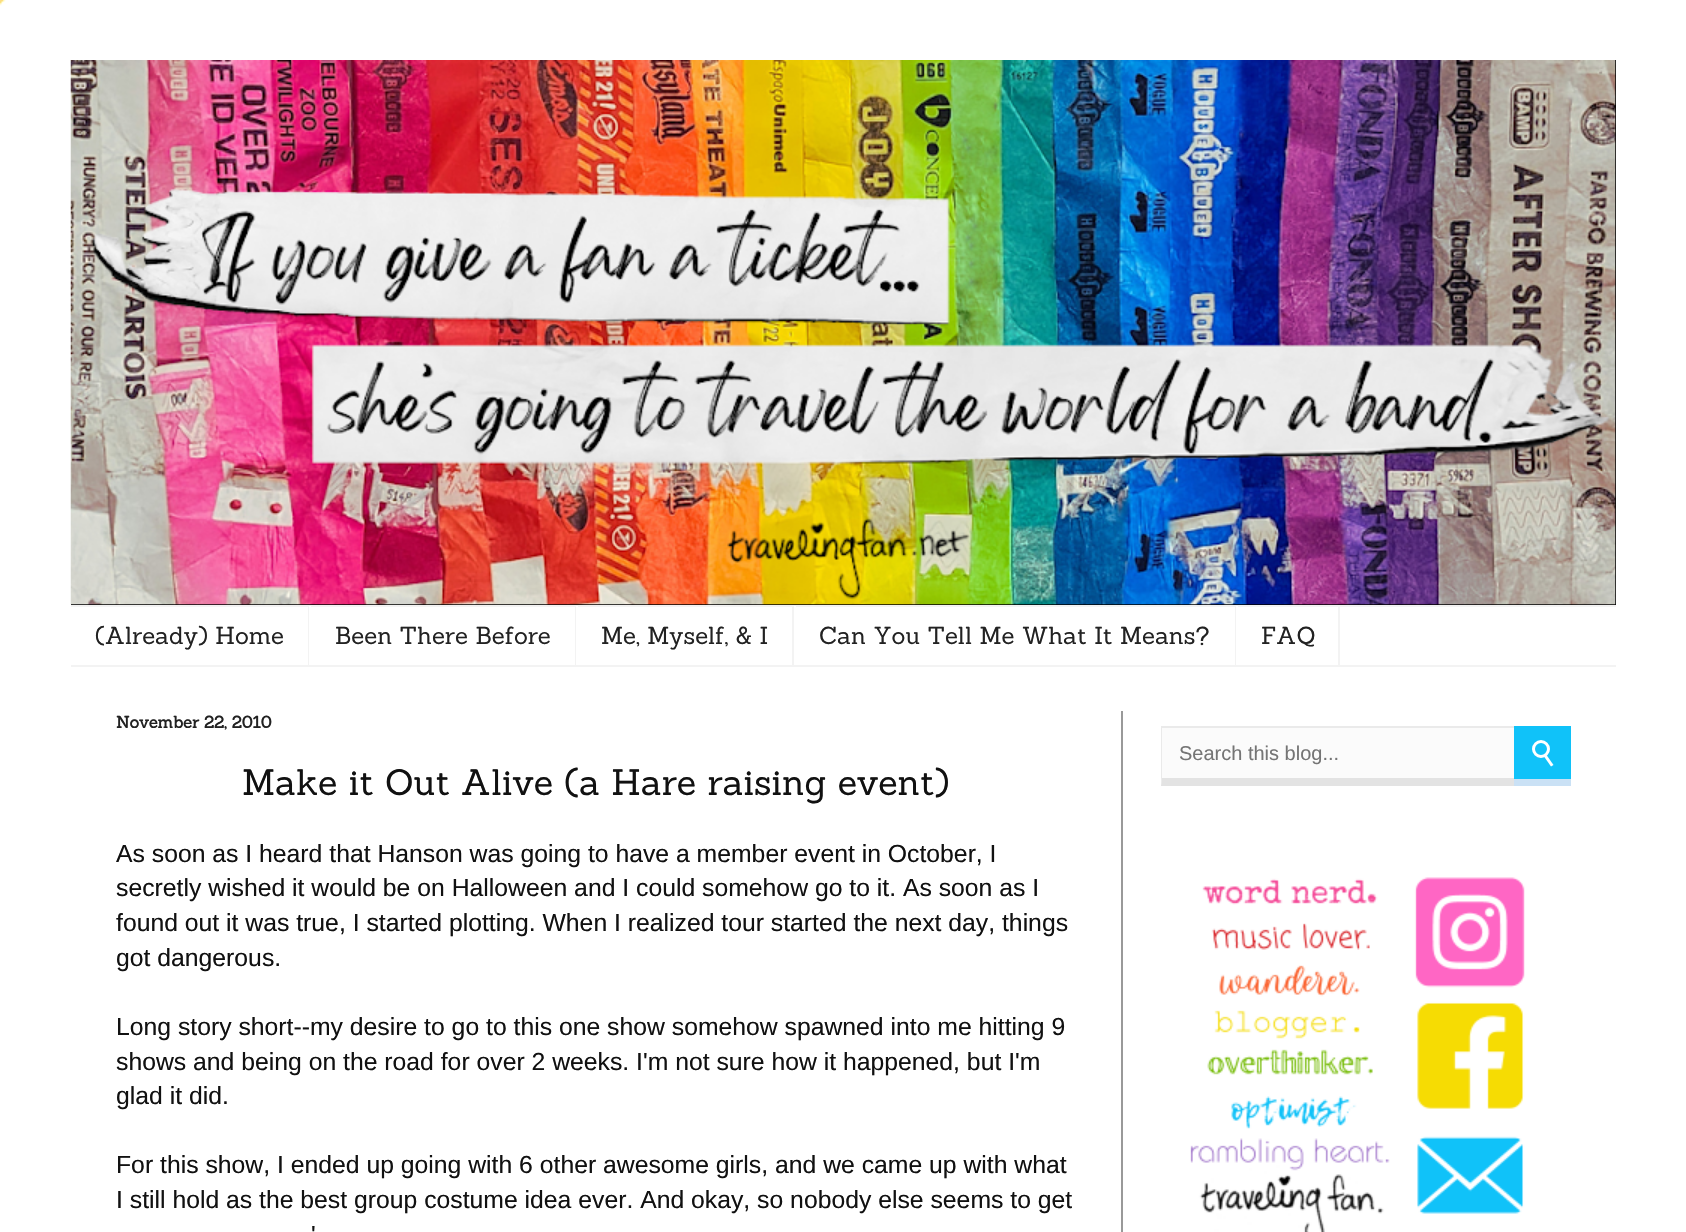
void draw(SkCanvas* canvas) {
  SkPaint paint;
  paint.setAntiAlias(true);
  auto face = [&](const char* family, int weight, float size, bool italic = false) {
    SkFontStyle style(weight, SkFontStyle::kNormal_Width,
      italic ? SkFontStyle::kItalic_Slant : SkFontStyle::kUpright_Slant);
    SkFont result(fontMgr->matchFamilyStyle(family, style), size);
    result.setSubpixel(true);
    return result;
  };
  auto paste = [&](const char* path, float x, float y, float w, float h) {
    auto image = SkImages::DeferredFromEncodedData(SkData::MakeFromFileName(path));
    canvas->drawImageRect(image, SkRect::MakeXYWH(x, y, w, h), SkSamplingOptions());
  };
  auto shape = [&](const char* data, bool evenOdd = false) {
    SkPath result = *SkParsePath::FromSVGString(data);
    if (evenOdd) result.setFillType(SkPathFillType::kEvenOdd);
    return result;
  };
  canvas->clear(0xffffffff);
  paste("img/1.png", 0, 0, 6, 6);
  paint.setColor(0xff000000);
  canvas->drawRect(SkRect::MakeXYWH(71, 60, 1545, 545), paint);
  paste("img/2.png", 70, 60, 1546, 545);
  {
    const struct { float x, y, w, h; SkColor color; } items[] = {
      {71, 605, 1545, 2, 0xfff3f3f3},
      {71, 665, 1545, 2, 0xfff3f3f3},
      {308, 606, 1, 59, 0xfff3f3f3},
      {575, 606, 1, 59, 0xfff3f3f3},
      {309, 606, 2, 1, 0xffffffff},
      {792, 606, 2, 59, 0xfff3f3f3},
      {576, 606, 2, 1, 0xffffffff},
      {1235, 606, 1, 59, 0xfff3f3f3},
      {794, 606, 2, 1, 0xffffffff},
      {1338, 606, 2, 59, 0xfff3f3f3},
      {1236, 606, 2, 1, 0xffffffff},
      {1121, 711, 2, 521, 0xff999999},
      {1161, 728, 353, 58, 0xfffbfbfb},
      {1161, 726, 353, 2, 0xffeaeaea},
    };
    for (auto [x, y, w, h, color] : items) {
      paint.setColor(color);
      canvas->drawRect(SkRect::MakeXYWH(x, y, w, h), paint);
    }
  }
  paint.setColor(0xffe3e3e3);
  canvas->drawPath(shape("M1514 786H1161L1162 778H1514Z"), paint);
  paint.setColor(0xffeaeaea);
  canvas->drawPath(shape("M1161 786V726L1162 728V778Z"), paint);
  paint.setColor(0xff10c2f9);
  canvas->drawRect(SkRect::MakeXYWH(1514, 726, 57, 53), paint);
  paint.setColor(0xffcae1f5);
  canvas->drawRect(SkRect::MakeXYWH(1514, 779, 57, 7), paint);
  paint.setColor(0xffffffff);
  canvas->drawPath(shape("M1544 756.5L1546.5 755L1553.5 765L1551 766.5Z"), paint);
  paint.setStroke(true);
  paint.setStrokeWidth(3);
  canvas->drawCircle(1541, 749, 7.5f, paint);
  paste("img/3.png", 1190, 877, 335, 355);
  auto f0 = face("Sanchez", 400, 24);
  paint.setStroke(false);
  paint.setColor(0xff222222);
  {
    const struct { const char* s; float x, y; } items[] = {
      {"(Already) Home", 95, 644},
      {"Been There Before", 335, 644},
      {"Me, Myself, & I", 601, 644},
      {"Can You Tell Me What It Means?", 819, 644},
      {"FAQ", 1261, 644},
    };
    for (auto [s, x, y] : items) {
      canvas->drawString(s, x, y, f0, paint);
    }
  }
  auto f1 = face("Sanchez", 700, 16.5f);
  canvas->drawString("November 22, 2010", 116, 728, f1, paint);
  auto f2 = face("Sanchez", 400, 36);
  paint.setColor(0xff111111);
  canvas->drawString("Make it Out Alive (a Hare raising event)", 242, 795, f2, paint);
  auto f3 = face("Liberation Sans", 400, 24.75f);
  {
    const struct { const char* s; float x, y; } items[] = {
      {"As soon as I heard that Hanson was going to have a member event in October, I", 116, 862},
      {"secretly wished it would be on Halloween and I could somehow go to it. As soon as I", 116, 896},
      {"found out it was true, I started plotting. When I realized tour started the next day, things", 116, 931},
      {"got dangerous.", 116, 966},
      {"Long story short--my desire to go to this one show somehow spawned into me hitting 9", 116, 1035},
      {"shows and being on the road for over 2 weeks. I'm not sure how it happened, but I'm", 116, 1070},
      {"glad it did.", 116, 1104},
      {"For this show, I ended up going with 6 other awesome girls, and we came up with what", 116, 1173},
      {"I still hold as the best group costume idea ever. And okay, so nobody else seems to get", 116, 1208},
      {"'", 311, 1243},
    };
    for (auto [s, x, y] : items) {
      canvas->drawString(s, x, y, f3, paint);
    }
  }
  auto f4 = face("Liberation Sans", 400, 20);
  paint.setColor(0xff757575);
  canvas->drawString("Search this blog...", 1179, 760, f4, paint);
}
